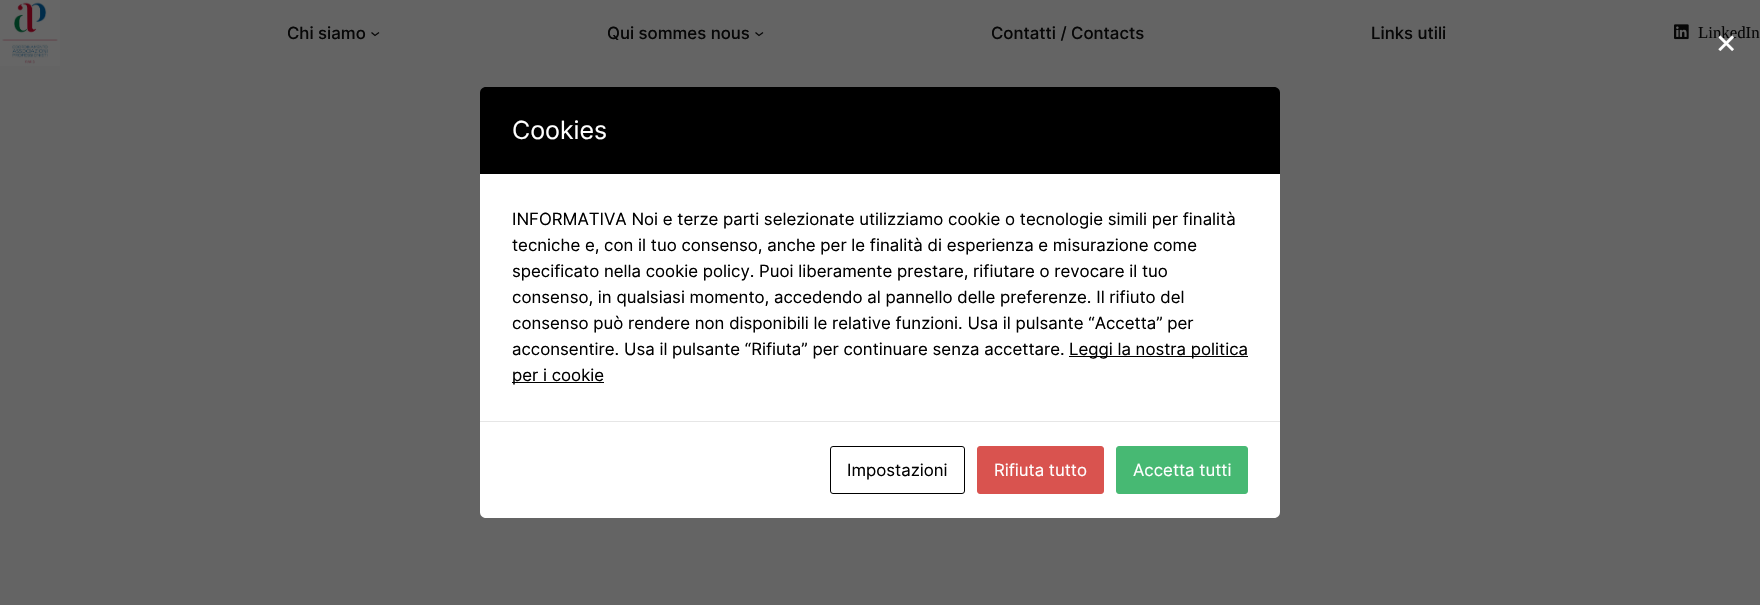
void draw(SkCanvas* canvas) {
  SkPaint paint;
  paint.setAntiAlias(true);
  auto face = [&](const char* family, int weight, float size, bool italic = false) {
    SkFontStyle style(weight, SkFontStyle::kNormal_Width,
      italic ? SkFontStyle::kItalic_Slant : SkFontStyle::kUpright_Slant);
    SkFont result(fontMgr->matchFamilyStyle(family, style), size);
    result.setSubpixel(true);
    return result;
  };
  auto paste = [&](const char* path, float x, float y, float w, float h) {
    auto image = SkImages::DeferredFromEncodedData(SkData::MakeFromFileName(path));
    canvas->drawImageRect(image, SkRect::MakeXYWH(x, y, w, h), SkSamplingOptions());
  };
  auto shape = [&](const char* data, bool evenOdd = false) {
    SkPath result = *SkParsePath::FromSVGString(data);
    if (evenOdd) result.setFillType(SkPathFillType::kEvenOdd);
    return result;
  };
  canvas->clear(0xff646464);
  paste("img/1.png", 0, 0, 60, 66);
  paint.setStroke(true);
  paint.setStrokeWidth(1.3f);
  paint.setColor(0xff070707);
  canvas->drawPath(shape("M371.5 32.5L375 35.5L379 32.5"), paint);
  canvas->drawPath(shape("M755.5 32.5L759 35.5L763 32.5"), paint);
  paste("img/2.png", 1674, 24, 15, 16);
  paint.setStroke(false);
  paint.setColor(0xff000000);
  canvas->drawPath(shape("M486 87H1274C1277.5 87 1280 89.5 1280 93V174H480V93C480 89.5 482.5 87 486 87Z"), paint);
  {
    const struct { float x, y, w, h; SkColor color; } items[] = {
      {480, 174, 800, 247, 0xffffffff},
      {1069, 356, 179, 1, 0xff000000},
      {512, 382, 92, 1, 0xff000000},
    };
    for (auto [x, y, w, h, color] : items) {
      paint.setColor(color);
      canvas->drawRect(SkRect::MakeXYWH(x, y, w, h), paint);
    }
  }
  paint.setColor(0xffffffff);
  canvas->drawPath(shape("M480 421H1280V512C1280 515.5 1277.5 518 1274 518H486C482.5 518 480 515.5 480 512Z"), paint);
  paint.setColor(0xffe6e6e6);
  canvas->drawRect(SkRect::MakeXYWH(480, 421, 800, 1), paint);
  paint.setStroke(true);
  paint.setStrokeWidth(1);
  paint.setColor(0xff000000);
  canvas->drawRoundRect(SkRect::MakeXYWH(830.5f, 446.5f, 134, 47), 2.5f, 2.5f, paint);
  paint.setStroke(false);
  paint.setColor(0xffd9534f);
  canvas->drawRoundRect(SkRect::MakeXYWH(977.5f, 446.5f, 126, 47), 2.5f, 2.5f, paint);
  paint.setStroke(true);
  canvas->drawRoundRect(SkRect::MakeXYWH(977.5f, 446.5f, 126, 47), 2.5f, 2.5f, paint);
  paint.setStroke(false);
  paint.setColor(0xff47b973);
  canvas->drawRoundRect(SkRect::MakeXYWH(1116.5f, 446.5f, 131, 47), 2.5f, 2.5f, paint);
  paint.setStroke(true);
  canvas->drawRoundRect(SkRect::MakeXYWH(1116.5f, 446.5f, 131, 47), 2.5f, 2.5f, paint);
  auto f0 = face("Inter", 500, 16.8f);
  paint.setStroke(false);
  paint.setColor(0xff070707);
  {
    const struct { const char* s; float x, y; } items[] = {
      {"Chi siamo", 287, 39},
      {"Qui sommes nous", 607, 39},
      {"Contatti / Contacts", 991, 39},
      {"Links utili", 1371, 39},
    };
    for (auto [s, x, y] : items) {
      canvas->drawString(s, x, y, f0, paint);
    }
  }
  auto f1 = face("Liberation Serif", 400, 16.8f);
  canvas->drawString("LinkedIn", 1698, 38, f1, paint);
  auto f2 = face("Inter", 400, 34);
  paint.setColor(0xffffffff);
  canvas->drawString("×", 1715, 53, f2, paint);
  auto f3 = face("Inter", 400, 25);
  canvas->drawString("Cookies", 512, 139, f3, paint);
  auto f4 = face("Inter", 400, 16.8f);
  paint.setColor(0xff000000);
  {
    const struct { const char* s; float x, y; } items[] = {
      {"INFORMATIVA Noi e terze parti selezionate utilizziamo cookie o tecnologie simili per finalità", 512, 225},
      {"tecniche e, con il tuo consenso, anche per le finalità di esperienza e misurazione come", 512, 251},
      {"specificato nella cookie policy. Puoi liberamente prestare, rifiutare o revocare il tuo", 512, 277},
      {"consenso, in qualsiasi momento, accedendo al pannello delle preferenze. Il rifiuto del", 512, 303},
      {"consenso può rendere non disponibili le relative funzioni. Usa il pulsante “Accetta” per", 512, 329},
      {"acconsentire. Usa il pulsante “Rifiuta” per continuare senza accettare.", 512, 355},
      {"Leggi la nostra politica", 1069, 355},
      {"per i cookie", 512, 381},
      {"Impostazioni", 847, 476},
    };
    for (auto [s, x, y] : items) {
      canvas->drawString(s, x, y, f4, paint);
    }
  }
  paint.setColor(0xffffffff);
  canvas->drawString("Rifiuta tutto", 994, 476, f4, paint);
  canvas->drawString("Accetta tutti", 1133, 476, f4, paint);
}
